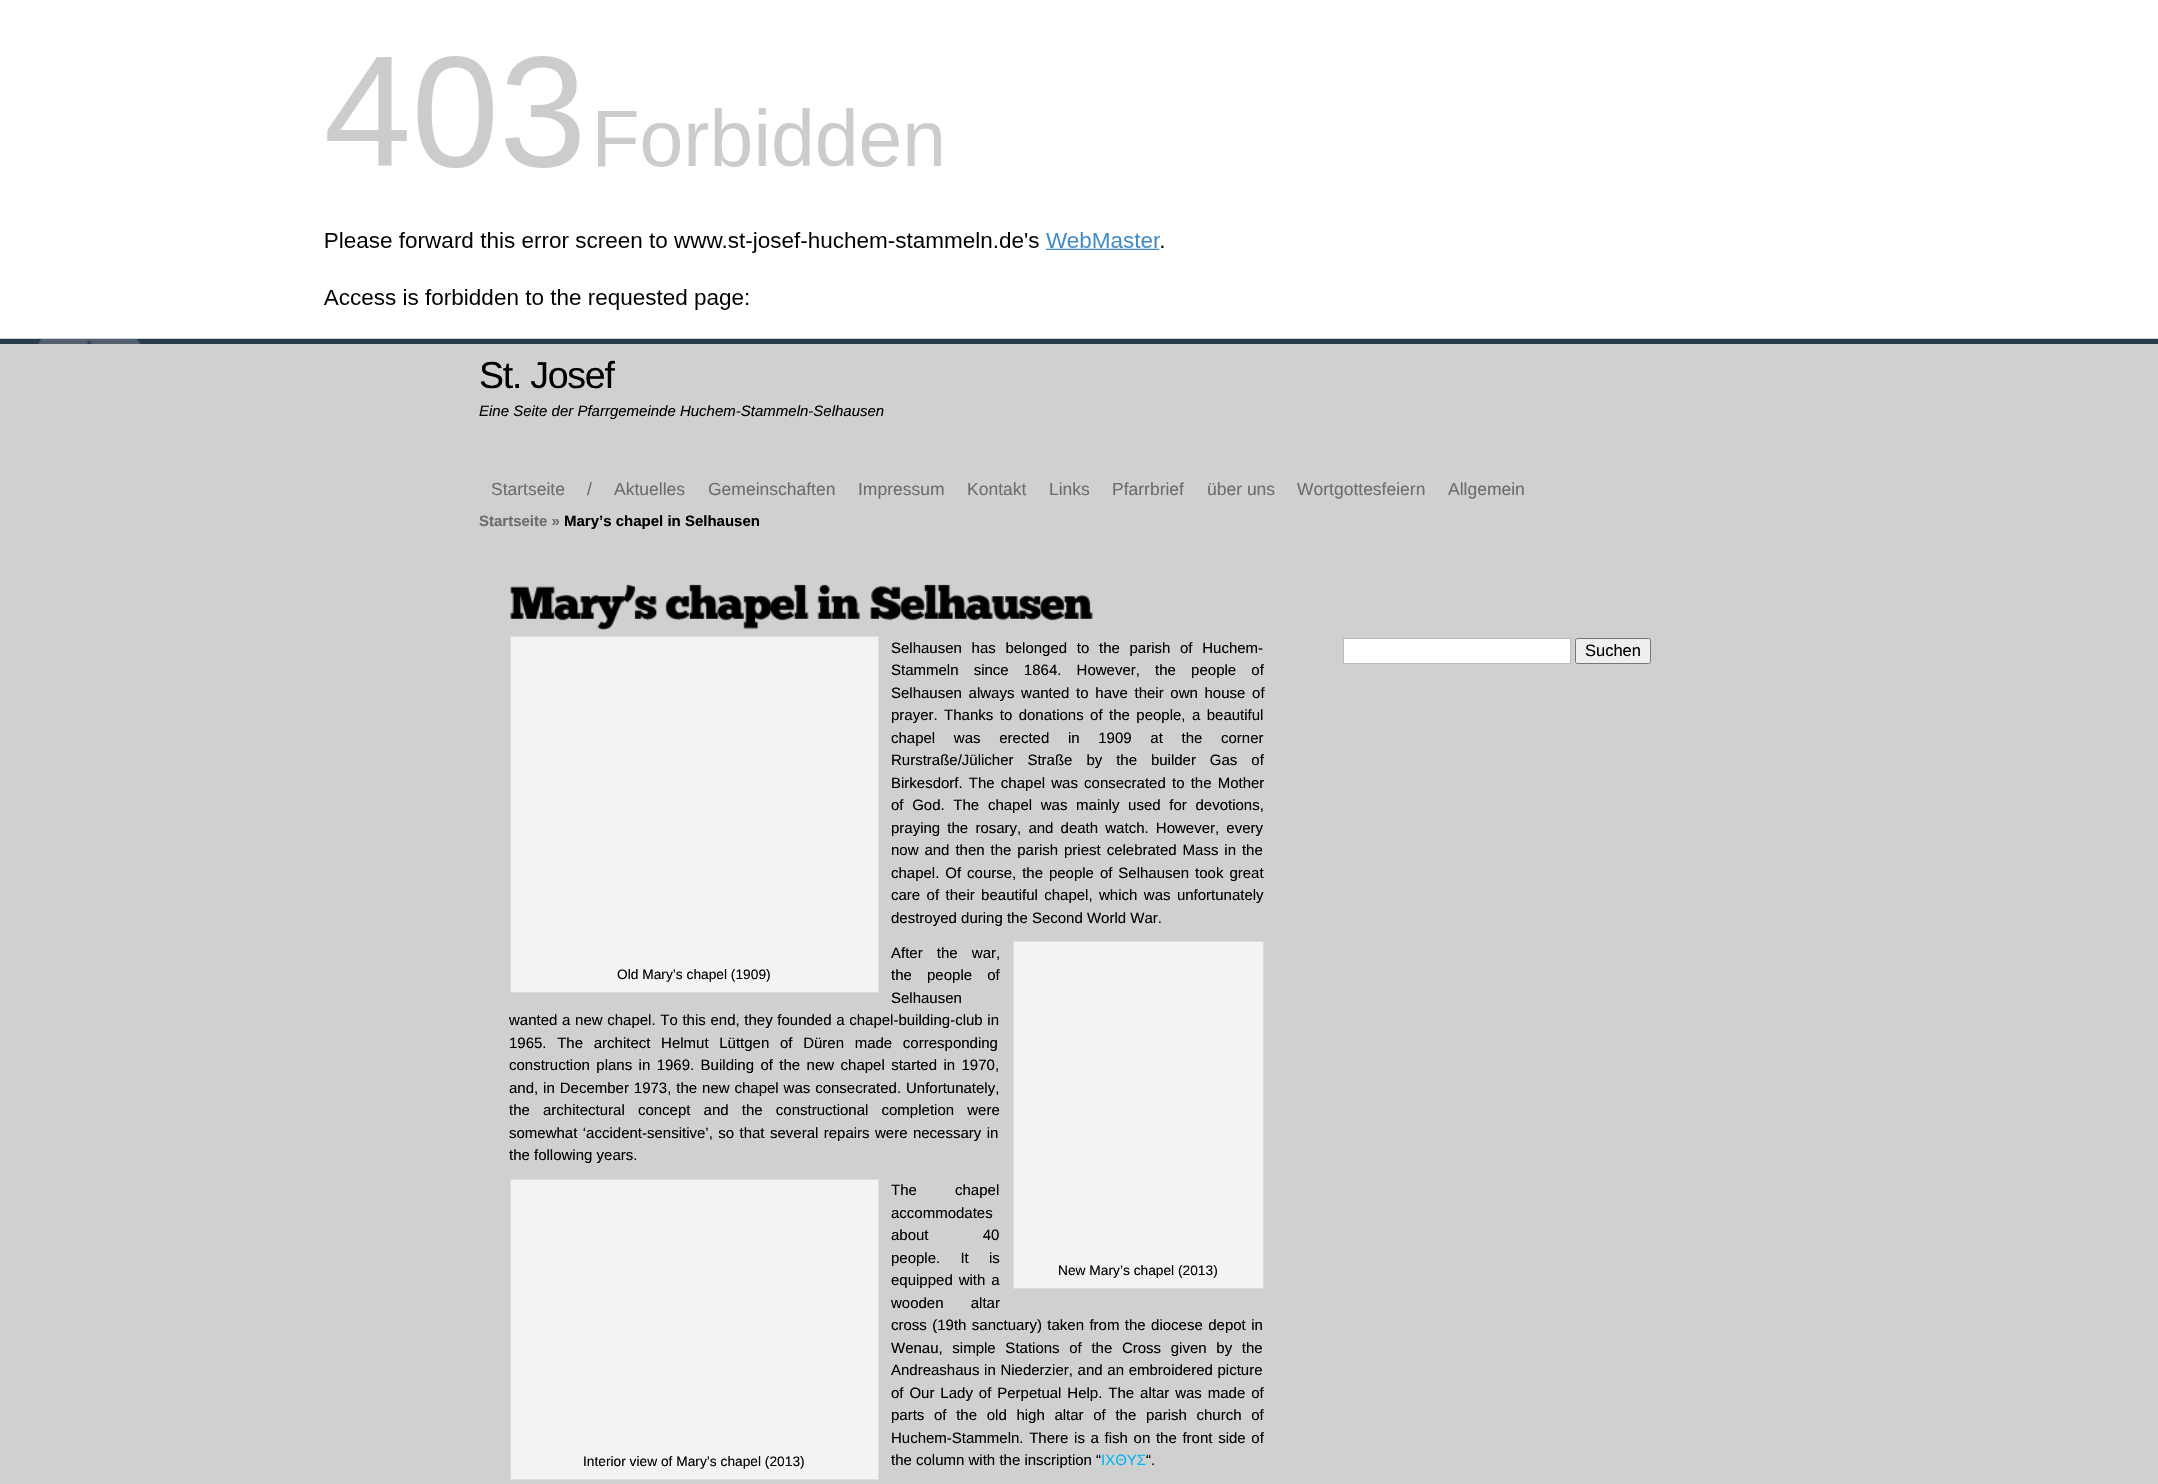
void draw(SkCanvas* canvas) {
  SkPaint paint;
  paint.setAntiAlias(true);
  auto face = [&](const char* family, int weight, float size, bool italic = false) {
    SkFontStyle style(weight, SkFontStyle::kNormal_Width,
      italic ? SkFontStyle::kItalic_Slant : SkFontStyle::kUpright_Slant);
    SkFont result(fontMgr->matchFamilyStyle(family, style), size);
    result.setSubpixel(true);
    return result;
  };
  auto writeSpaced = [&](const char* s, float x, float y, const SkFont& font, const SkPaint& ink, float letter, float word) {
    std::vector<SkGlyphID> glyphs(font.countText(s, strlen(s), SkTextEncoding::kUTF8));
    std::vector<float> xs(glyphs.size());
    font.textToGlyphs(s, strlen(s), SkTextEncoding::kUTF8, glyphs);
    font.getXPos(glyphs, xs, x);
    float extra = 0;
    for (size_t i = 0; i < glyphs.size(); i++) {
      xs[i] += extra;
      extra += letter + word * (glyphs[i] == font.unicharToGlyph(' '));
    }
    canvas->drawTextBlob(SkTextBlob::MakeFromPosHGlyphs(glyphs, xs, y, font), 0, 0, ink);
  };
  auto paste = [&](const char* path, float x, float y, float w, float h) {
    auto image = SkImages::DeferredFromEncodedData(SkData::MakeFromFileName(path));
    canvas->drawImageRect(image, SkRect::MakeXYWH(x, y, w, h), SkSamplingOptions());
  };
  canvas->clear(0xffd0d0d0);
  paste("img/1.png", 0, 0, 2158, 344);
  paste("img/2.png", 510, 584, 148, 46);
  paste("img/3.png", 665, 584, 144, 45);
  paste("img/4.png", 817, 584, 44, 35);
  paste("img/5.png", 870, 584, 223, 37);
  paint.setColor(0xfff3f3f3);
  canvas->drawRect(SkRect::MakeXYWH(510.5f, 636.5f, 368, 356), paint);
  paint.setStroke(true);
  paint.setStrokeWidth(1);
  paint.setColor(0xffdddddd);
  canvas->drawRect(SkRect::MakeXYWH(510.5f, 636.5f, 368, 356), paint);
  paint.setStroke(false);
  paint.setColor(0xfff3f3f3);
  canvas->drawRect(SkRect::MakeXYWH(1013.5f, 941.5f, 250, 347), paint);
  paint.setStroke(true);
  paint.setColor(0xffdddddd);
  canvas->drawRect(SkRect::MakeXYWH(1013.5f, 941.5f, 250, 347), paint);
  paint.setStroke(false);
  paint.setColor(0xfff3f3f3);
  canvas->drawRect(SkRect::MakeXYWH(510.5f, 1179.5f, 368, 300), paint);
  paint.setStroke(true);
  paint.setColor(0xffdddddd);
  canvas->drawRect(SkRect::MakeXYWH(510.5f, 1179.5f, 368, 300), paint);
  paint.setStroke(false);
  paint.setColor(0xffffffff);
  canvas->drawRect(SkRect::MakeXYWH(1343.5f, 638.5f, 227, 25), paint);
  paint.setStroke(true);
  paint.setColor(0xffbbbbbb);
  canvas->drawRect(SkRect::MakeXYWH(1343.5f, 638.5f, 227, 25), paint);
  paint.setStroke(false);
  paint.setColor(0xffefefef);
  canvas->drawRoundRect(SkRect::MakeXYWH(1575.5f, 638.5f, 75, 25), 2, 2, paint);
  paint.setStroke(true);
  paint.setColor(0xff767676);
  canvas->drawRoundRect(SkRect::MakeXYWH(1575.5f, 638.5f, 75, 25), 2, 2, paint);
  auto f0 = face("Liberation Sans", 400, 37.5f);
  paint.setStroke(false);
  paint.setColor(0xff000000);
  writeSpaced("St. Josef", 479, 388, f0, paint, -1.25f, 0);
  auto f1 = face("Liberation Sans", 400, 15, true);
  canvas->drawString("Eine Seite der Pfarrgemeinde Huchem-Stammeln-Selhausen", 479, 416, f1, paint);
  auto f2 = face("Liberation Sans", 400, 17.5f);
  paint.setColor(0xff6c6c6d);
  {
    const struct { const char* s; float x, y; } items[] = {
      {"Startseite", 491, 495},
      {"/", 587, 495},
      {"Aktuelles", 614, 495},
      {"Gemeinschaften", 708, 495},
      {"Impressum", 858, 495},
      {"Kontakt", 967, 495},
      {"Links", 1049, 495},
      {"Pfarrbrief", 1112, 495},
      {"über uns", 1207, 495},
      {"Wortgottesfeiern", 1297, 495},
      {"Allgemein", 1448, 495},
    };
    for (auto [s, x, y] : items) {
      canvas->drawString(s, x, y, f2, paint);
    }
  }
  auto f3 = face("Liberation Sans", 700, 15);
  canvas->drawString("Startseite »", 479, 526, f3, paint);
  paint.setColor(0xff000000);
  canvas->drawString("Mary’s chapel in Selhausen", 564, 526, f3, paint);
  auto f4 = face("Liberation Sans", 400, 15);
  writeSpaced("Selhausen has belonged to the parish of Huchem-", 891, 653, f4, paint, 0, 5.5f);
  writeSpaced("Stammeln since 1864. However, the people of", 891, 675, f4, paint, 0, 11);
  writeSpaced("Selhausen always wanted to have their own house of", 891, 698, f4, paint, 0, 2.5f);
  writeSpaced("prayer. Thanks to donations of the people, a beautiful", 891, 720, f4, paint, 0, 2.25f);
  writeSpaced("chapel was erected in 1909 at the corner", 891, 743, f4, paint, 0, 14.5f);
  writeSpaced("Rurstraße/Jülicher Straße by the builder Gas of", 891, 765, f4, paint, 0, 9.75f);
  writeSpaced("Birkesdorf. The chapel was consecrated to the Mother", 891, 788, f4, paint, 0, 2);
  writeSpaced("of God. The chapel was mainly used for devotions,", 891, 810, f4, paint, 0, 4.5f);
  writeSpaced("praying the rosary, and death watch. However, every", 891, 833, f4, paint, 0, 3);
  writeSpaced("now and then the parish priest celebrated Mass in the", 891, 855, f4, paint, 0, 1.75f);
  writeSpaced("chapel. Of course, the people of Selhausen took great", 891, 878, f4, paint, 0, 1.75f);
  writeSpaced("care of their beautiful chapel, which was unfortunately", 891, 900, f4, paint, 0, 2.25f);
  canvas->drawString("destroyed during the Second World War.", 891, 923, f4, paint);
  writeSpaced("After the war,", 891, 958, f4, paint, 0, 10);
  writeSpaced("the people of", 891, 980, f4, paint, 0, 11);
  canvas->drawString("Selhausen", 891, 1003, f4, paint);
  writeSpaced("wanted a new chapel. To this end, they founded a chapel-building-club in", 509, 1025, f4, paint, 0, 0.5f);
  writeSpaced("1965. The architect Helmut Lüttgen of Düren made corresponding", 509, 1048, f4, paint, 0, 6.5f);
  writeSpaced("construction plans in 1969. Building of the new chapel started in 1970,", 509, 1070, f4, paint, 0, 2.25f);
  writeSpaced("and, in December 1973, the new chapel was consecrated. Unfortunately,", 509, 1093, f4, paint, 0, 0.75f);
  writeSpaced("the architectural concept and the constructional completion were", 509, 1115, f4, paint, 0, 9);
  writeSpaced("somewhat ‘accident-sensitive’, so that several repairs were necessary in", 509, 1138, f4, paint, 0, 1.25f);
  canvas->drawString("the following years.", 509, 1160, f4, paint);
  auto f5 = face("Liberation Sans", 400, 13.75f);
  canvas->drawString("Old Mary’s chapel (1909)", 617, 979, f5, paint);
  writeSpaced("The chapel", 891, 1195, f4, paint, 0, 34);
  canvas->drawString("accommodates", 891, 1218, f4, paint);
  writeSpaced("about 40", 891, 1240, f4, paint, 0, 50);
  writeSpaced("people. It is", 891, 1263, f4, paint, 0, 16);
  writeSpaced("equipped with a", 891, 1285, f4, paint, 0, 1.75f);
  writeSpaced("wooden altar", 891, 1308, f4, paint, 0, 23);
  writeSpaced("cross (19th sanctuary) taken from the diocese depot in", 891, 1330, f4, paint, 0, 1.25f);
  writeSpaced("Wenau, simple Stations of the Cross given by the", 891, 1353, f4, paint, 0, 5.5f);
  writeSpaced("Andreashaus in Niederzier, and an embroidered picture", 891, 1375, f4, paint, 0, 0.5f);
  writeSpaced("of Our Lady of Perpetual Help. The altar was made of", 891, 1398, f4, paint, 0, 1.75f);
  writeSpaced("parts of the old high altar of the parish church of", 891, 1420, f4, paint, 0, 5.5f);
  writeSpaced("Huchem-Stammeln. There is a fish on the front side of", 891, 1443, f4, paint, 0, 1.5f);
  canvas->drawString("the column with the inscription “", 891, 1465, f4, paint);
  paint.setColor(0xff00b7f3);
  canvas->drawString("ΙΧΘΥΣ", 1101, 1465, f4, paint);
  paint.setColor(0xff000000);
  canvas->drawString("“.", 1146, 1465, f4, paint);
  canvas->drawString("New Mary’s chapel (2013)", 1058, 1275, f5, paint);
  canvas->drawString("Interior view of Mary’s chapel (2013)", 583, 1466, f5, paint);
  auto f6 = face("Liberation Sans", 400, 16.5f);
  canvas->drawString("Suchen", 1585, 656, f6, paint);
}
